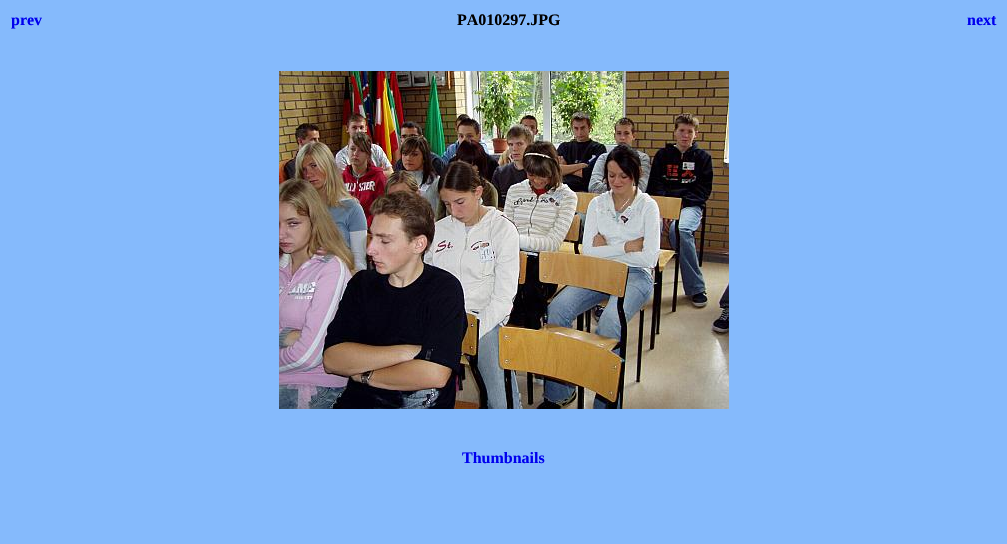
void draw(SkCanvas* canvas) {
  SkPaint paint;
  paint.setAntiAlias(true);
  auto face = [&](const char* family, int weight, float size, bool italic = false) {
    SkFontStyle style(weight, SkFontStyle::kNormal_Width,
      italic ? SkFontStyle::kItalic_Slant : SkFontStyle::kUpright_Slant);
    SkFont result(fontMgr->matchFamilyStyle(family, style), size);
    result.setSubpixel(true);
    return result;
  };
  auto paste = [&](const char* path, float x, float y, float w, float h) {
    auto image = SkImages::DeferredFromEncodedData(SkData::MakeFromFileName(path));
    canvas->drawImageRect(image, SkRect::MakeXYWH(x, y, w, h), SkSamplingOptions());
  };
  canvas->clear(0xff85bafc);
  paste("img/1.png", 279, 71, 450, 338);
  auto f0 = face("Liberation Serif", 700, 16);
  paint.setColor(0xff0000ee);
  canvas->drawString("prev", 11, 25, f0, paint);
  paint.setColor(0xff000000);
  canvas->drawString("PA010297.JPG", 457, 25, f0, paint);
  paint.setColor(0xff0000ee);
  canvas->drawString("next", 967, 25, f0, paint);
  canvas->drawString("Thumbnails", 462, 463, f0, paint);
}
